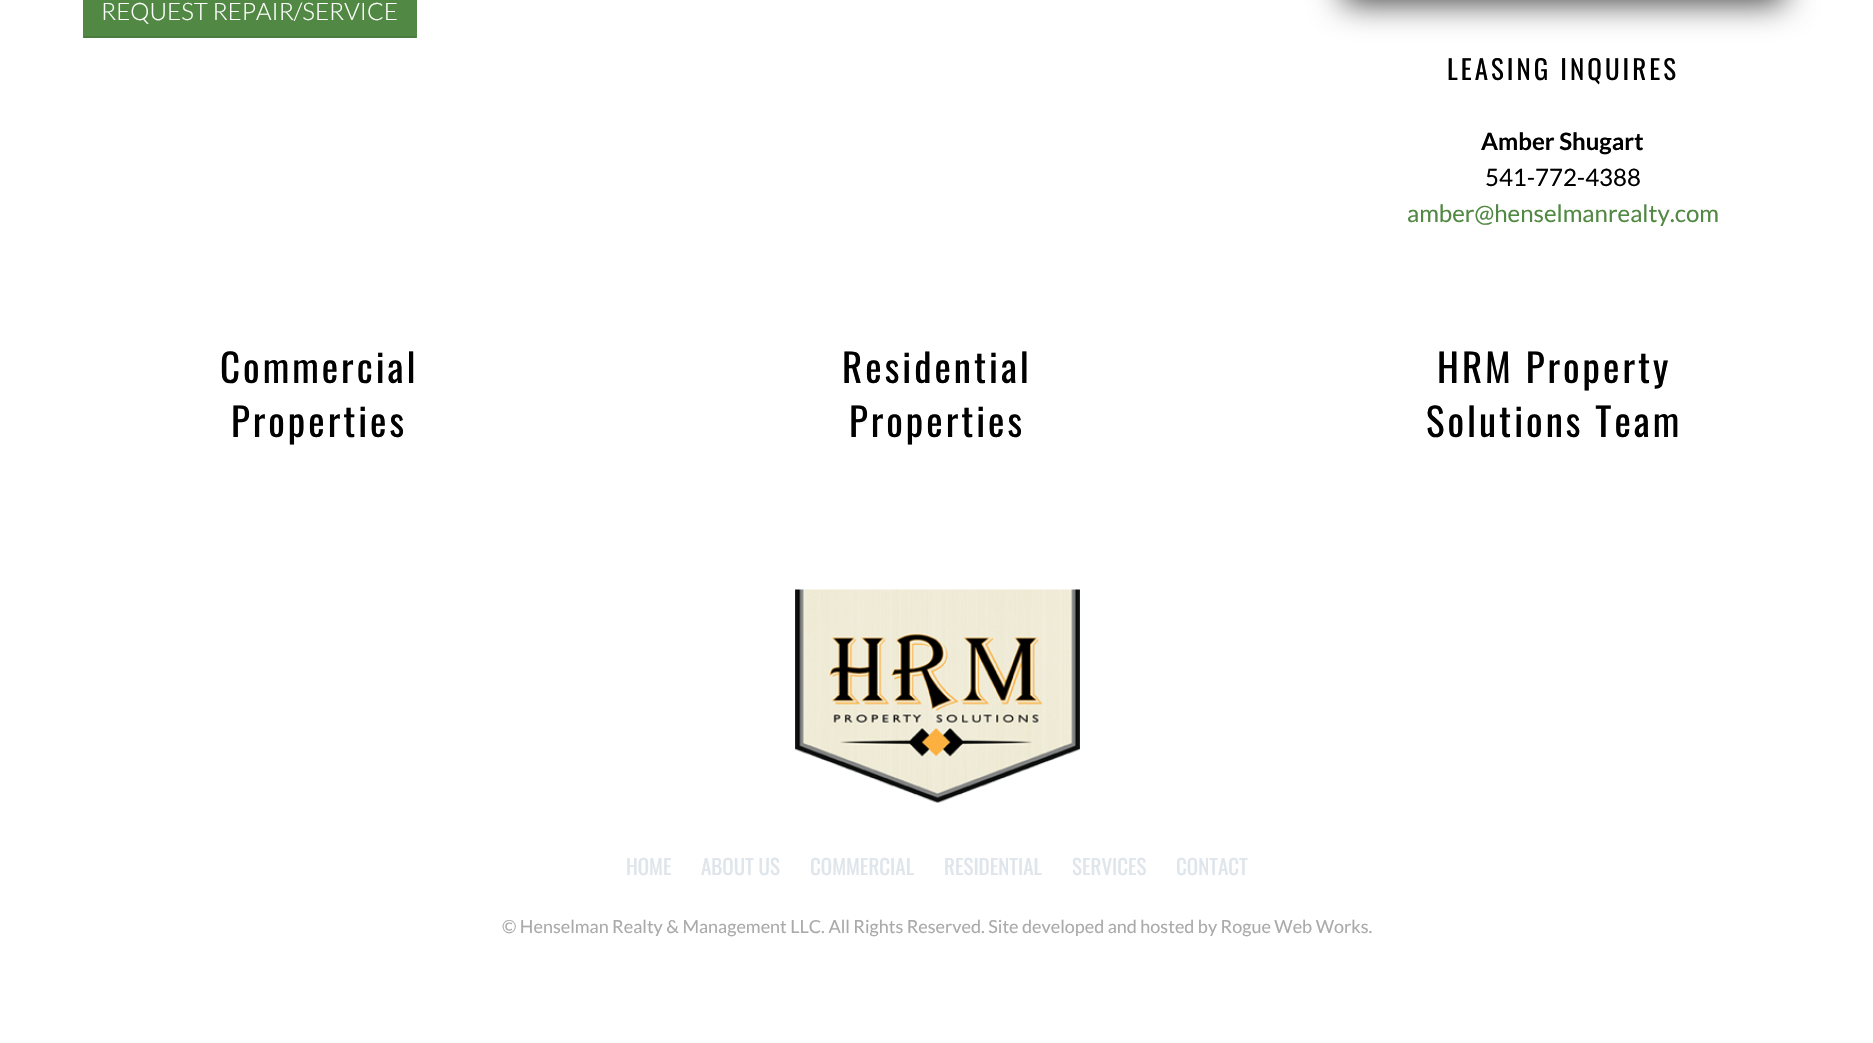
void draw(SkCanvas* canvas) {
  SkPaint paint;
  paint.setAntiAlias(true);
  auto face = [&](const char* family, int weight, float size, bool italic = false) {
    SkFontStyle style(weight, SkFontStyle::kNormal_Width,
      italic ? SkFontStyle::kItalic_Slant : SkFontStyle::kUpright_Slant);
    SkFont result(fontMgr->matchFamilyStyle(family, style), size);
    result.setSubpixel(true);
    return result;
  };
  auto writeSpaced = [&](const char* s, float x, float y, const SkFont& font, const SkPaint& ink, float letter, float word) {
    std::vector<SkGlyphID> glyphs(font.countText(s, strlen(s), SkTextEncoding::kUTF8));
    std::vector<float> xs(glyphs.size());
    font.textToGlyphs(s, strlen(s), SkTextEncoding::kUTF8, glyphs);
    font.getXPos(glyphs, xs, x);
    float extra = 0;
    for (size_t i = 0; i < glyphs.size(); i++) {
      xs[i] += extra;
      extra += letter + word * (glyphs[i] == font.unicharToGlyph(' '));
    }
    canvas->drawTextBlob(SkTextBlob::MakeFromPosHGlyphs(glyphs, xs, y, font), 0, 0, ink);
  };
  auto paste = [&](const char* path, float x, float y, float w, float h) {
    auto image = SkImages::DeferredFromEncodedData(SkData::MakeFromFileName(path));
    canvas->drawImageRect(image, SkRect::MakeXYWH(x, y, w, h), SkSamplingOptions());
  };
  canvas->clear(0xffffffff);
  paint.setColor(0xff518843);
  canvas->drawRect(SkRect::MakeXYWH(83, 0, 334, 38), paint);
  paint.setColor(0xff4a7c3d);
  canvas->drawRect(SkRect::MakeXYWH(84, 36, 332, 2), paint);
  paint.setColor(0xbf000000);
  paint.setMaskFilter(SkMaskFilter::MakeBlur(kNormal_SkBlurStyle, 16.5f));
  canvas->drawRect(SkRect::MakeXYWH(1343, -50, 441, 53), paint);
  paint.setMaskFilter(nullptr);
  paste("img/1.png", 795, 589, 285, 214);
  auto f0 = face("Lato", 300, 24);
  paint.setColor(0xffffffff);
  canvas->drawString("REQUEST REPAIR/SERVICE", 101, 20, f0, paint);
  auto f1 = face("Oswald", 400, 27);
  paint.setColor(0xff000000);
  writeSpaced("LEASING INQUIRES", 1447, 80, f1, paint, 3, 0);
  auto f2 = face("Lato", 700, 24);
  canvas->drawString("Amber Shugart", 1481, 150, f2, paint);
  auto f3 = face("Lato", 400, 24);
  canvas->drawString("541-772-4388", 1485, 186, f3, paint);
  paint.setColor(0xff518843);
  canvas->drawString("amber@henselmanrealty.com", 1407, 222, f3, paint);
  auto f4 = face("Oswald", 400, 39);
  paint.setColor(0xff000000);
  {
    const struct { const char* s; float x, y; } items[] = {
      {"Commercial", 220, 383},
      {"Properties", 231, 437},
      {"Residential", 842, 383},
      {"Properties", 849, 437},
      {"HRM Property", 1437, 383},
      {"Solutions Team", 1426, 437},
    };
    for (auto [s, x, y] : items) {
      writeSpaced(s, x, y, f4, paint, 3, 0);
    }
  }
  auto f5 = face("Oswald", 400, 21);
  paint.setColor(0xffdee5eb);
  {
    const struct { const char* s; float x, y; } items[] = {
      {"HOME", 626, 875},
      {"ABOUT US", 701, 875},
      {"COMMERCIAL", 810, 875},
      {"RESIDENTIAL", 944, 875},
      {"SERVICES", 1072, 875},
      {"CONTACT", 1176, 875},
    };
    for (auto [s, x, y] : items) {
      canvas->drawString(s, x, y, f5, paint);
    }
  }
  auto f6 = face("Lato", 400, 18);
  paint.setColor(0xffaaaaaa);
  canvas->drawString("© Henselman Realty & Management LLC. All Rights Reserved. Site developed and hosted by Rogue Web Works.", 502, 933, f6, paint);
}
